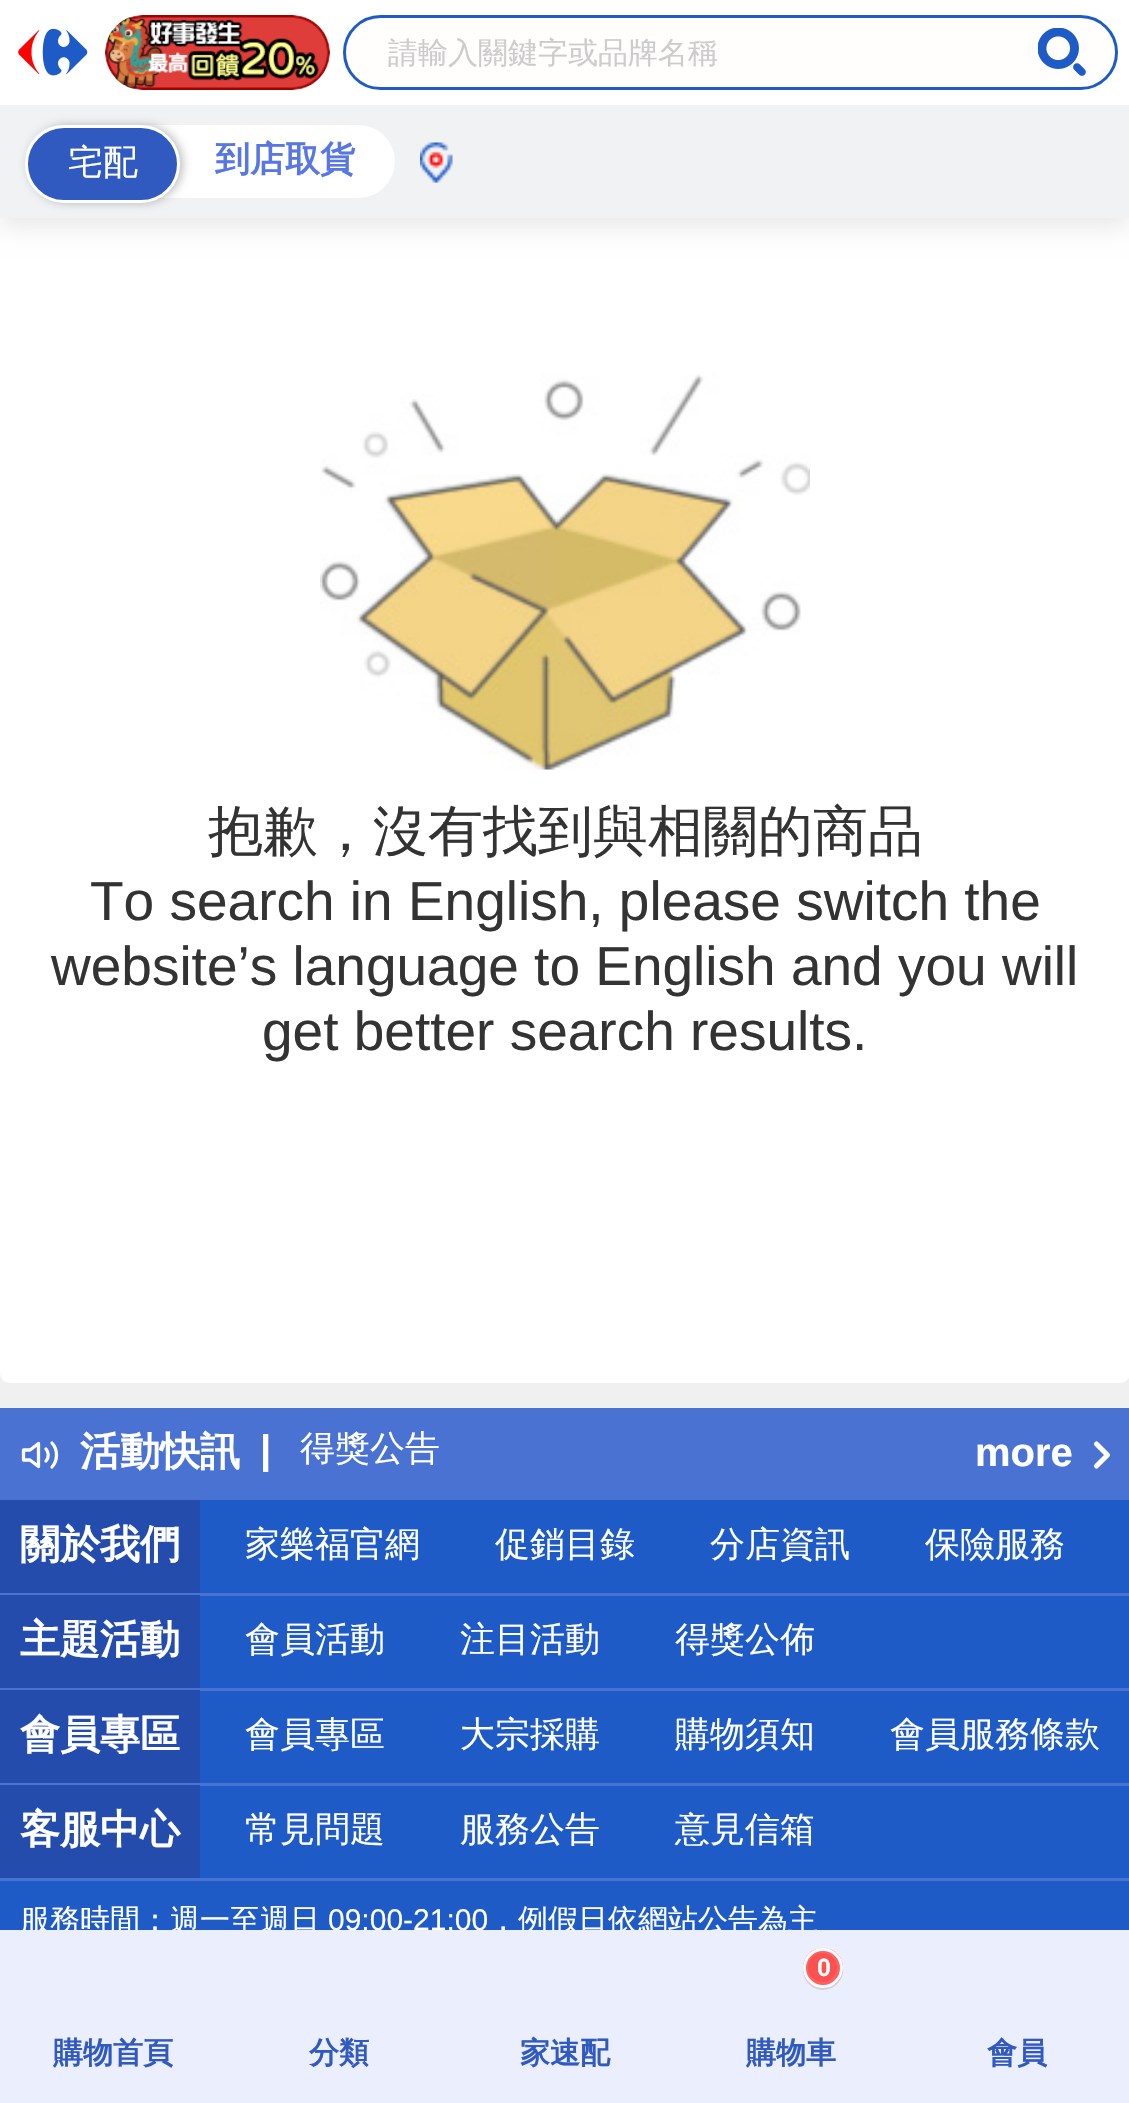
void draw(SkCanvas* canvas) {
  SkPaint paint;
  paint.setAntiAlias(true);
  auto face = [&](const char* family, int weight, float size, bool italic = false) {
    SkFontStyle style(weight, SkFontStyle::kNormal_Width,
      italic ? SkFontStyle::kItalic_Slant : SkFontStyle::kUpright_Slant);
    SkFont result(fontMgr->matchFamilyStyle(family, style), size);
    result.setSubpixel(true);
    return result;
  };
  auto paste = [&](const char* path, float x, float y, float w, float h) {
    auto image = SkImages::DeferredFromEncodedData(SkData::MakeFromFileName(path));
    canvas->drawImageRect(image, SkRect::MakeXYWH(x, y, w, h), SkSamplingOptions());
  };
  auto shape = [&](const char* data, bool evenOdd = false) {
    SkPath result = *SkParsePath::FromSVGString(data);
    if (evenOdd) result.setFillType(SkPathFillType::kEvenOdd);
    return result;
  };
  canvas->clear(0xfff0f0f0);
  paint.setColor(0xffffffff);
  canvas->drawRoundRect(SkRect::MakeXYWH(0, 133, 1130, 1250), 10, 10, paint);
  paint.setColor(0x1a000000);
  paint.setMaskFilter(SkMaskFilter::MakeBlur(kNormal_SkBlurStyle, 12.5f));
  canvas->drawRect(SkRect::MakeXYWH(0, 8, 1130, 217), paint);
  paint.setMaskFilter(nullptr);
  paint.setColor(0xffffffff);
  canvas->drawRect(SkRect::MakeXYWH(0, 0, 1129, 105), paint);
  paste("img/1.png", 18, 28, 70, 48);
  paste("img/2.png", 105, 15, 225, 75);
  paint.setColor(0xfffffefc);
  canvas->drawRoundRect(SkRect::MakeXYWH(344.5f, 16.5f, 772, 72), 36, 36, paint);
  paint.setStroke(true);
  paint.setStrokeWidth(3);
  paint.setColor(0xff1e5bc6);
  canvas->drawRoundRect(SkRect::MakeXYWH(344.5f, 16.5f, 772, 72), 36, 36, paint);
  paste("img/3.png", 1038, 28, 48, 48);
  paint.setStroke(false);
  paint.setColor(0xfff1f2f3);
  canvas->drawRect(SkRect::MakeXYWH(0, 105, 1129, 113), paint);
  paint.setColor(0xffffffff);
  canvas->drawRoundRect(SkRect::MakeXYWH(25, 125, 370, 73), 36.5f, 36.5f, paint);
  paint.setColor(0x40000000);
  paint.setMaskFilter(SkMaskFilter::MakeBlur(kNormal_SkBlurStyle, 5));
  canvas->drawRoundRect(SkRect::MakeXYWH(28, 125, 155, 78), 39, 39, paint);
  paint.setMaskFilter(nullptr);
  paint.setColor(0xff305abf);
  canvas->drawRoundRect(SkRect::MakeXYWH(26.5f, 126.5f, 152, 75), 37.5f, 37.5f, paint);
  paint.setStroke(true);
  paint.setColor(0xffffffff);
  canvas->drawRoundRect(SkRect::MakeXYWH(26.5f, 126.5f, 152, 75), 37.5f, 37.5f, paint);
  paste("img/4.png", 420, 142, 33, 41);
  paste("img/5.png", 320, 374, 490, 396);
  paint.setStroke(false);
  paint.setColor(0xff1e5bc6);
  canvas->drawRect(SkRect::MakeXYWH(0, 1500, 1129, 430), paint);
  paint.setColor(0xff4a72d3);
  canvas->drawRect(SkRect::MakeXYWH(0, 1408, 1129, 92), paint);
  paint.setStroke(true);
  paint.setStrokeWidth(3.3f);
  paint.setStrokeCap(SkPaint::kRound_Cap);
  paint.setStrokeJoin(SkPaint::kRound_Join);
  paint.setColor(0xffffffff);
  canvas->drawPath(shape("M38.5 1443.5L30 1450H23.5V1460H30L38.5 1466.5ZM52 1443C58 1449.5 58 1460.5 52 1467M46 1449C49 1452.5 49 1457.5 46 1461"), paint);
  paint.setStrokeWidth(5);
  canvas->drawPath(shape("M1096.5 1444L1107.5 1455L1096.5 1466"), paint);
  paint.setStroke(false);
  {
    const struct { float x, y, w, h; SkColor color; } items[] = {
      {0, 1593, 1129, 3, 0xff4a72d3},
      {0, 1500, 200, 93, 0xff244cad},
      {0, 1688, 1129, 3, 0xff4a72d3},
      {0, 1595, 200, 93, 0xff244cad},
      {0, 1783, 1129, 3, 0xff4a72d3},
      {0, 1690, 200, 93, 0xff244cad},
      {0, 1878, 1129, 3, 0xff4a72d3},
      {0, 1785, 200, 93, 0xff244cad},
    };
    for (auto [x, y, w, h, color] : items) {
      paint.setColor(color);
      canvas->drawRect(SkRect::MakeXYWH(x, y, w, h), paint);
    }
  }
  auto f0 = face("WenQuanYi Zen Hei", 500, 30);
  paint.setColor(0xffcccccc);
  canvas->drawString("請輸入關鍵字或品牌名稱", 388, 63, f0, paint);
  auto f1 = face("WenQuanYi Zen Hei", 500, 35);
  paint.setColor(0xffffffff);
  canvas->drawString("宅配", 68, 174, f1, paint);
  auto f2 = face("WenQuanYi Zen Hei", 700, 35);
  paint.setColor(0xff5877e1);
  canvas->drawString("到店取貨", 215, 171, f2, paint);
  auto f3 = face("WenQuanYi Zen Hei", 500, 55);
  paint.setColor(0xff333333);
  canvas->drawString("抱歉，沒有找到與相關的商品", 208, 850, f3, paint);
  auto f4 = face("Liberation Sans", 400, 55);
  {
    const struct { const char* s; float x, y; } items[] = {
      {"To search in English, please switch the", 90, 920},
      {"website’s language to English and you will", 51, 985},
      {"get better search results.", 262, 1050},
    };
    for (auto [s, x, y] : items) {
      canvas->drawString(s, x, y, f4, paint);
    }
  }
  auto f5 = face("WenQuanYi Zen Hei", 700, 40);
  paint.setColor(0xffffffff);
  canvas->drawString("活動快訊", 80, 1465, f5, paint);
  auto f6 = face("Liberation Sans", 700, 40);
  canvas->drawString("|", 260, 1463, f6, paint);
  canvas->drawString("得獎公告", 300, 1460, f1, paint);
  canvas->drawString("more", 975, 1466, f6, paint);
  canvas->drawString("關於我們", 20, 1558, f5, paint);
  {
    const struct { const char* s; float x, y; } items[] = {
      {"家樂福官網", 245, 1556},
      {"促銷目錄", 495, 1556},
      {"分店資訊", 710, 1556},
      {"保險服務", 925, 1556},
    };
    for (auto [s, x, y] : items) {
      canvas->drawString(s, x, y, f1, paint);
    }
  }
  canvas->drawString("主題活動", 20, 1653, f5, paint);
  {
    const struct { const char* s; float x, y; } items[] = {
      {"會員活動", 245, 1651},
      {"注目活動", 460, 1651},
      {"得獎公佈", 675, 1651},
    };
    for (auto [s, x, y] : items) {
      canvas->drawString(s, x, y, f1, paint);
    }
  }
  canvas->drawString("會員專區", 20, 1748, f5, paint);
  {
    const struct { const char* s; float x, y; } items[] = {
      {"會員專區", 245, 1746},
      {"大宗採購", 460, 1746},
      {"購物須知", 675, 1746},
      {"會員服務條款", 890, 1746},
    };
    for (auto [s, x, y] : items) {
      canvas->drawString(s, x, y, f1, paint);
    }
  }
  canvas->drawString("客服中心", 20, 1843, f5, paint);
  {
    const struct { const char* s; float x, y; } items[] = {
      {"常見問題", 245, 1841},
      {"服務公告", 460, 1841},
      {"意見信箱", 675, 1841},
    };
    for (auto [s, x, y] : items) {
      canvas->drawString(s, x, y, f1, paint);
    }
  }
  canvas->drawString("服務時間：週一至週日", 20, 1930, f0, paint);
  auto f7 = face("Liberation Sans", 400, 30);
  canvas->drawString("09:00-21:00", 328, 1930, f7, paint);
  canvas->drawString("，例假日依網站公告為主", 488, 1930, f0, paint);
  paint.setColor(0xffebeefd);
  canvas->drawRect(SkRect::MakeXYWH(0, 1930, 1129, 173), paint);
  auto f8 = face("WenQuanYi Zen Hei", 700, 30);
  paint.setColor(0xff305abf);
  {
    const struct { const char* s; float x, y; } items[] = {
      {"購物首頁", 53, 2063},
      {"分類", 309, 2063},
      {"家速配", 520, 2063},
    };
    for (auto [s, x, y] : items) {
      canvas->drawString(s, x, y, f8, paint);
    }
  }
  paint.setColor(0xffcfd1df);
  canvas->drawPath(shape("M803 1972.5C804 1977.5 806 1982 810 1985C824.5 1998 847.5 1983.5 842.5 1965C843 1968.5 842.5 1972 841 1975.5C833.5 1993 808 1991 803 1972.5Z"), paint);
  paint.setColor(0xfffd5151);
  canvas->drawCircle(823, 1968, 20, paint);
  paint.setStroke(true);
  paint.setStrokeWidth(3);
  paint.setStrokeCap(SkPaint::kButt_Cap);
  paint.setStrokeJoin(SkPaint::kMiter_Join);
  paint.setColor(0xfffd6262);
  canvas->drawCircle(822.5f, 1967.5f, 16, paint);
  paint.setColor(0xffffffff);
  canvas->drawCircle(823, 1968, 18.5f, paint);
  auto f9 = face("Liberation Sans", 700, 25);
  paint.setStroke(false);
  canvas->drawString("0", 817, 1976, f9, paint);
  paint.setColor(0xff305abf);
  canvas->drawString("購物車", 746, 2063, f8, paint);
  canvas->drawString("會員", 987, 2063, f8, paint);
}
